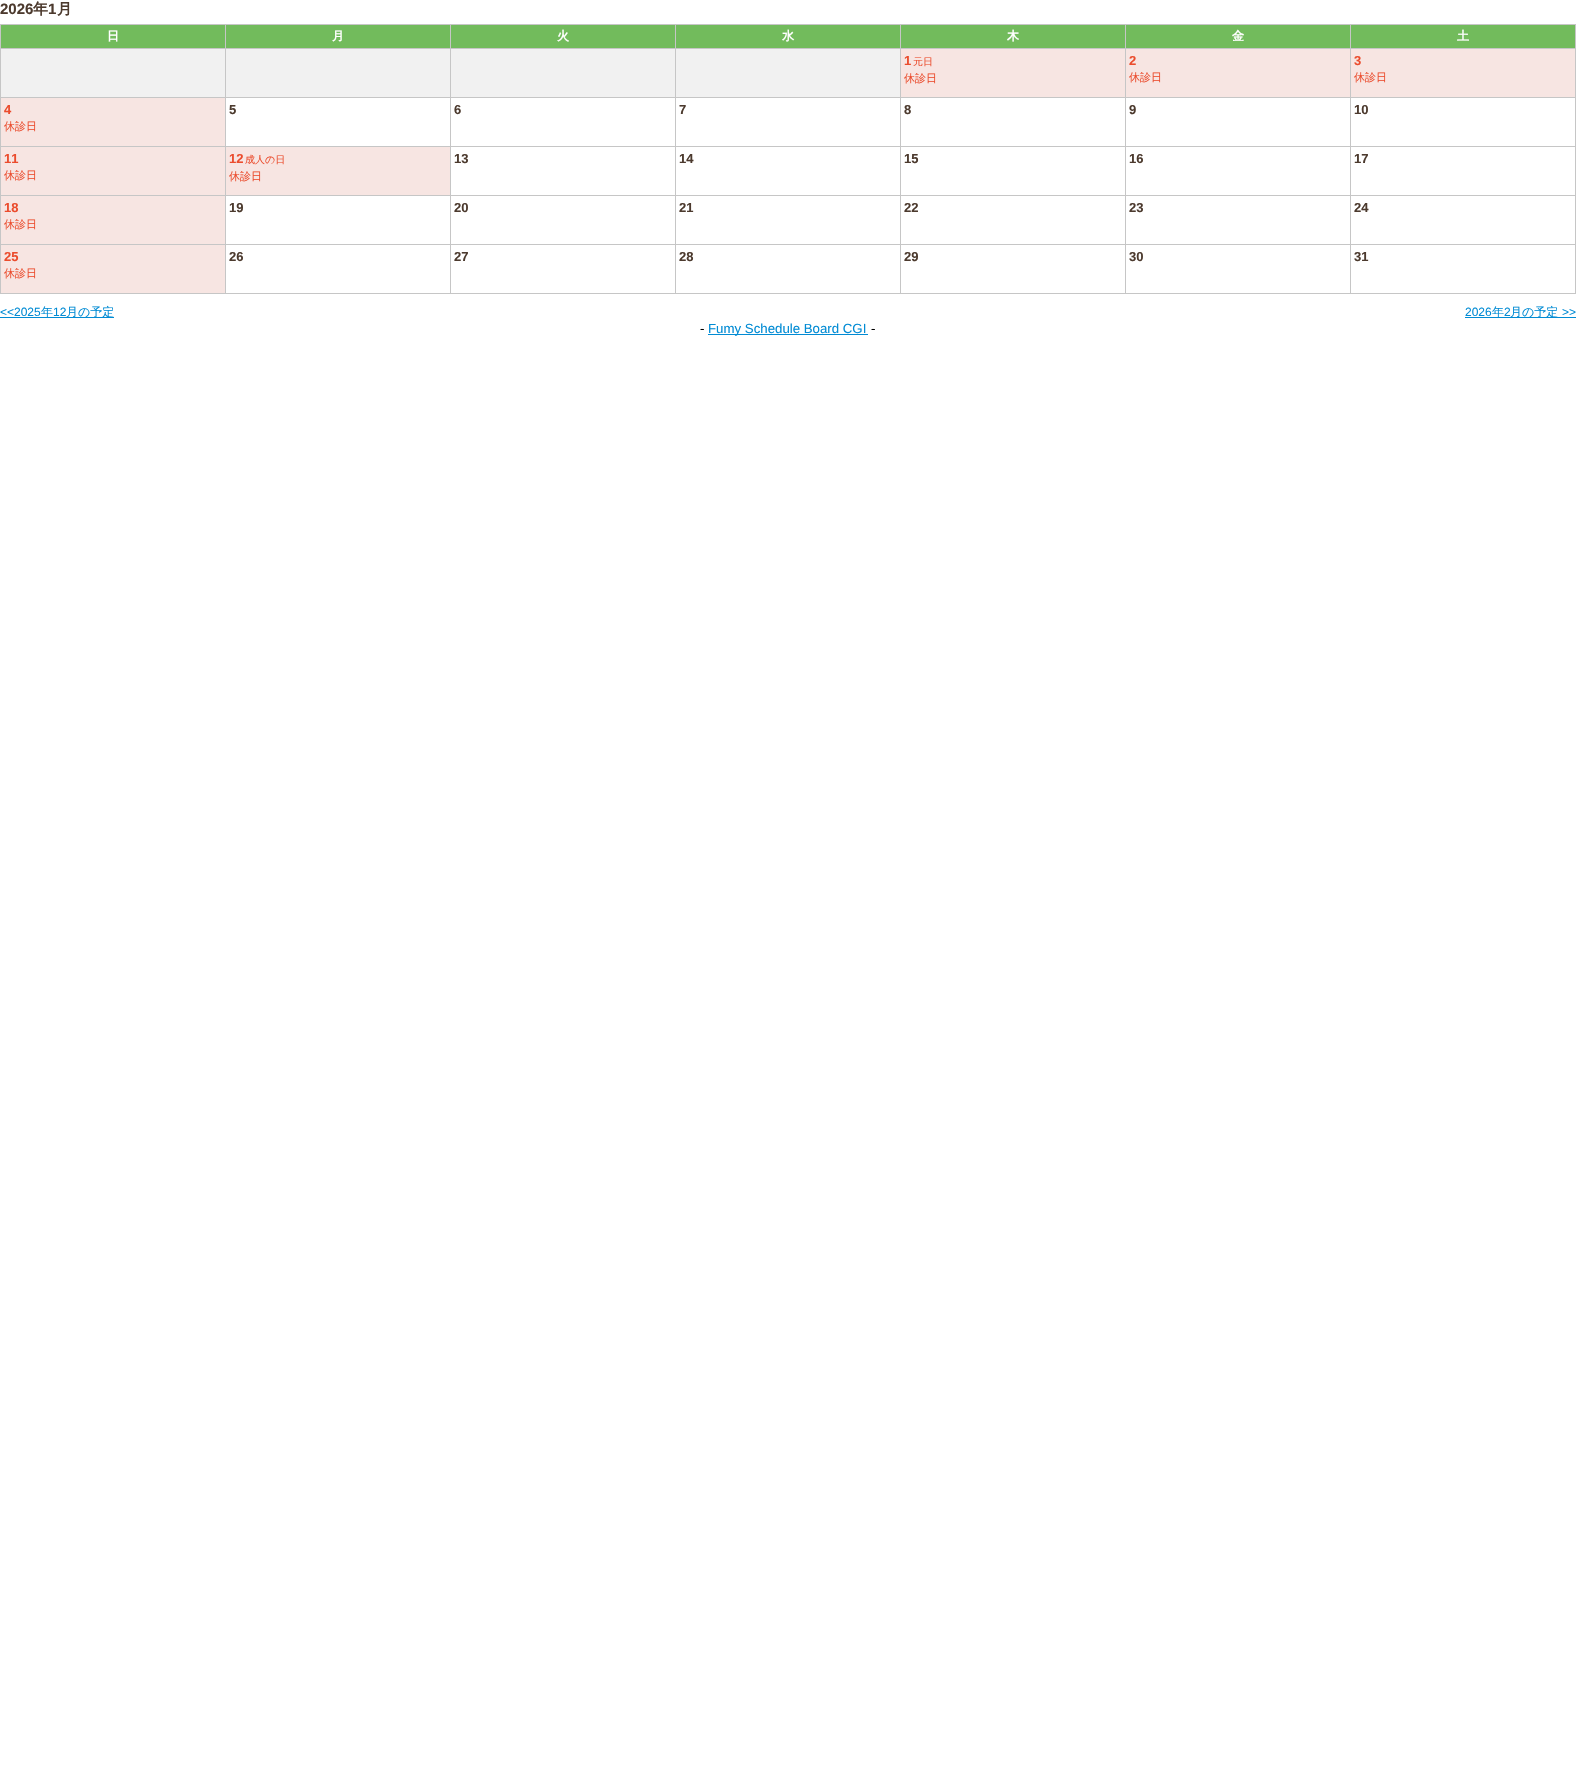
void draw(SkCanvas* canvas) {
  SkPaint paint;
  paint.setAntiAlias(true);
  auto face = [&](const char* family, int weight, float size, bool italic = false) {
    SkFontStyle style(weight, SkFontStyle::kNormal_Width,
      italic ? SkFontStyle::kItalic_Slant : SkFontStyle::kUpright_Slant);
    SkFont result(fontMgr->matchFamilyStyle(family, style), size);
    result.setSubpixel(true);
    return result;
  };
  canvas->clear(0xffffffff);
  {
    const struct { float x, y, w, h; SkColor color; } items[] = {
      {1, 25, 224, 23, 0xff72bb5c},
      {1350, 24, 226, 1, 0xffc6c6c6},
      {1350, 48, 226, 1, 0xffc6c6c6},
      {1350, 97, 226, 1, 0xffc6c6c6},
      {1350, 146, 226, 1, 0xffc6c6c6},
      {1350, 195, 226, 1, 0xffc6c6c6},
      {1350, 244, 226, 1, 0xffc6c6c6},
      {1575, 244, 1, 50, 0xffc6c6c6},
      {1350, 293, 226, 1, 0xffc6c6c6},
      {1350, 244, 1, 50, 0xffc6c6c6},
      {1125, 244, 226, 1, 0xffc6c6c6},
      {1350, 195, 1, 50, 0xffc6c6c6},
      {1125, 195, 226, 1, 0xffc6c6c6},
      {1350, 146, 1, 50, 0xffc6c6c6},
      {1125, 146, 226, 1, 0xffc6c6c6},
      {1350, 97, 1, 50, 0xffc6c6c6},
      {1125, 97, 226, 1, 0xffc6c6c6},
      {1350, 48, 1, 50, 0xffc6c6c6},
      {1125, 48, 226, 1, 0xffc6c6c6},
      {1350, 24, 1, 25, 0xffc6c6c6},
      {1125, 24, 226, 1, 0xffc6c6c6},
      {1125, 293, 226, 1, 0xffc6c6c6},
      {1125, 244, 1, 50, 0xffc6c6c6},
      {900, 244, 226, 1, 0xffc6c6c6},
      {1125, 195, 1, 50, 0xffc6c6c6},
      {900, 195, 226, 1, 0xffc6c6c6},
      {1125, 146, 1, 50, 0xffc6c6c6},
      {900, 146, 226, 1, 0xffc6c6c6},
      {1125, 97, 1, 50, 0xffc6c6c6},
      {900, 97, 226, 1, 0xffc6c6c6},
      {1125, 48, 1, 50, 0xffc6c6c6},
      {900, 48, 226, 1, 0xffc6c6c6},
      {1125, 24, 1, 25, 0xffc6c6c6},
      {900, 24, 226, 1, 0xffc6c6c6},
      {900, 293, 226, 1, 0xffc6c6c6},
      {900, 244, 1, 50, 0xffc6c6c6},
      {675, 244, 226, 1, 0xffc6c6c6},
      {900, 195, 1, 50, 0xffc6c6c6},
      {675, 195, 226, 1, 0xffc6c6c6},
      {900, 146, 1, 50, 0xffc6c6c6},
      {675, 146, 226, 1, 0xffc6c6c6},
      {900, 97, 1, 50, 0xffc6c6c6},
      {675, 97, 226, 1, 0xffc6c6c6},
      {900, 48, 1, 50, 0xffc6c6c6},
      {675, 48, 226, 1, 0xffc6c6c6},
      {900, 24, 1, 25, 0xffc6c6c6},
      {675, 24, 226, 1, 0xffc6c6c6},
      {675, 293, 226, 1, 0xffc6c6c6},
      {675, 244, 1, 50, 0xffc6c6c6},
      {450, 244, 226, 1, 0xffc6c6c6},
      {675, 195, 1, 50, 0xffc6c6c6},
      {450, 195, 226, 1, 0xffc6c6c6},
      {675, 146, 1, 50, 0xffc6c6c6},
      {450, 146, 226, 1, 0xffc6c6c6},
      {675, 97, 1, 50, 0xffc6c6c6},
      {450, 97, 226, 1, 0xffc6c6c6},
      {675, 48, 1, 50, 0xffc6c6c6},
      {450, 48, 226, 1, 0xffc6c6c6},
      {675, 24, 1, 25, 0xffc6c6c6},
      {450, 24, 226, 1, 0xffc6c6c6},
      {450, 293, 226, 1, 0xffc6c6c6},
      {450, 244, 1, 50, 0xffc6c6c6},
      {225, 244, 226, 1, 0xffc6c6c6},
      {450, 195, 1, 50, 0xffc6c6c6},
      {225, 195, 226, 1, 0xffc6c6c6},
      {450, 146, 1, 50, 0xffc6c6c6},
      {225, 146, 226, 1, 0xffc6c6c6},
      {450, 97, 1, 50, 0xffc6c6c6},
      {225, 97, 226, 1, 0xffc6c6c6},
      {450, 48, 1, 50, 0xffc6c6c6},
      {225, 48, 226, 1, 0xffc6c6c6},
      {450, 24, 1, 25, 0xffc6c6c6},
      {225, 24, 226, 1, 0xffc6c6c6},
      {225, 293, 226, 1, 0xffc6c6c6},
      {225, 244, 1, 50, 0xffc6c6c6},
      {0, 244, 226, 1, 0xffc6c6c6},
      {225, 195, 1, 50, 0xffc6c6c6},
      {0, 195, 226, 1, 0xffc6c6c6},
      {225, 146, 1, 50, 0xffc6c6c6},
      {0, 146, 226, 1, 0xffc6c6c6},
      {225, 97, 1, 50, 0xffc6c6c6},
      {0, 97, 226, 1, 0xffc6c6c6},
      {225, 48, 1, 50, 0xffc6c6c6},
      {0, 48, 226, 1, 0xffc6c6c6},
      {225, 24, 1, 25, 0xffc6c6c6},
      {0, 24, 226, 1, 0xffc6c6c6},
      {0, 293, 226, 1, 0xffc6c6c6},
      {0, 244, 1, 50, 0xffc6c6c6},
      {0, 195, 1, 50, 0xffc6c6c6},
      {0, 146, 1, 50, 0xffc6c6c6},
      {0, 97, 1, 50, 0xffc6c6c6},
      {0, 48, 1, 50, 0xffc6c6c6},
      {0, 24, 1, 25, 0xffc6c6c6},
      {226, 25, 224, 23, 0xff72bb5c},
      {451, 25, 224, 23, 0xff72bb5c},
      {676, 25, 224, 23, 0xff72bb5c},
      {901, 25, 224, 23, 0xff72bb5c},
      {1126, 25, 224, 23, 0xff72bb5c},
      {1351, 25, 224, 23, 0xff72bb5c},
      {1575, 195, 1, 50, 0xffc6c6c6},
      {1575, 146, 1, 50, 0xffc6c6c6},
      {1575, 97, 1, 50, 0xffc6c6c6},
      {1575, 48, 1, 50, 0xffc6c6c6},
      {1575, 24, 1, 25, 0xffc6c6c6},
      {1, 49, 224, 48, 0xfff1f1f1},
      {226, 49, 224, 48, 0xfff1f1f1},
      {451, 49, 224, 48, 0xfff1f1f1},
      {676, 49, 224, 48, 0xfff1f1f1},
      {901, 49, 224, 48, 0xfff7e5e2},
      {1126, 49, 224, 48, 0xfff7e5e2},
      {1351, 49, 224, 48, 0xfff7e5e2},
      {1, 98, 224, 48, 0xfff7e5e2},
      {1, 147, 224, 48, 0xfff7e5e2},
      {226, 147, 224, 48, 0xfff7e5e2},
      {1, 196, 224, 48, 0xfff7e5e2},
      {1, 245, 224, 48, 0xfff7e5e2},
      {0, 317, 114, 1, 0xff018bd4},
      {1465, 317, 111, 1, 0xff018bd4},
      {708, 334, 160, 1, 0xff018bd4},
    };
    for (auto [x, y, w, h, color] : items) {
      paint.setColor(color);
      canvas->drawRect(SkRect::MakeXYWH(x, y, w, h), paint);
    }
  }
  auto f0 = face("Liberation Sans", 700, 15);
  paint.setColor(0xff4c3a2e);
  canvas->drawString("2026", 0, 14, f0, paint);
  auto f1 = face("WenQuanYi Zen Hei", 700, 15);
  canvas->drawString("年", 33, 14, f1, paint);
  canvas->drawString("1", 48, 14, f0, paint);
  canvas->drawString("月", 57, 14, f1, paint);
  auto f2 = face("WenQuanYi Zen Hei", 700, 12);
  paint.setColor(0xffffffff);
  {
    const struct { const char* s; float x, y; } items[] = {
      {"日", 107, 40},
      {"月", 332, 40},
      {"火", 557, 40},
      {"水", 782, 40},
      {"木", 1007, 40},
      {"金", 1232, 40},
      {"土", 1457, 40},
    };
    for (auto [s, x, y] : items) {
      canvas->drawString(s, x, y, f2, paint);
    }
  }
  auto f3 = face("Liberation Sans", 700, 13);
  paint.setColor(0xffeb4c2d);
  canvas->drawString("1", 904, 65, f3, paint);
  auto f4 = face("WenQuanYi Zen Hei", 500, 10);
  canvas->drawString("元日", 913, 65, f4, paint);
  auto f5 = face("WenQuanYi Zen Hei", 500, 11);
  canvas->drawString("休診日", 904, 82, f5, paint);
  canvas->drawString("2", 1129, 65, f3, paint);
  canvas->drawString("休診日", 1129, 81, f5, paint);
  canvas->drawString("3", 1354, 65, f3, paint);
  canvas->drawString("休診日", 1354, 81, f5, paint);
  canvas->drawString("4", 4, 114, f3, paint);
  canvas->drawString("休診日", 4, 130, f5, paint);
  paint.setColor(0xff4c3a2e);
  {
    const struct { const char* s; float x, y; } items[] = {
      {"5", 229, 114},
      {"6", 454, 114},
      {"7", 679, 114},
      {"8", 904, 114},
      {"9", 1129, 114},
      {"10", 1354, 114},
    };
    for (auto [s, x, y] : items) {
      canvas->drawString(s, x, y, f3, paint);
    }
  }
  paint.setColor(0xffeb4c2d);
  canvas->drawString("11", 4, 163, f3, paint);
  canvas->drawString("休診日", 4, 179, f5, paint);
  canvas->drawString("12", 229, 163, f3, paint);
  canvas->drawString("成人の日", 245, 163, f4, paint);
  canvas->drawString("休診日", 229, 180, f5, paint);
  paint.setColor(0xff4c3a2e);
  {
    const struct { const char* s; float x, y; } items[] = {
      {"13", 454, 163},
      {"14", 679, 163},
      {"15", 904, 163},
      {"16", 1129, 163},
      {"17", 1354, 163},
    };
    for (auto [s, x, y] : items) {
      canvas->drawString(s, x, y, f3, paint);
    }
  }
  paint.setColor(0xffeb4c2d);
  canvas->drawString("18", 4, 212, f3, paint);
  canvas->drawString("休診日", 4, 228, f5, paint);
  paint.setColor(0xff4c3a2e);
  {
    const struct { const char* s; float x, y; } items[] = {
      {"19", 229, 212},
      {"20", 454, 212},
      {"21", 679, 212},
      {"22", 904, 212},
      {"23", 1129, 212},
      {"24", 1354, 212},
    };
    for (auto [s, x, y] : items) {
      canvas->drawString(s, x, y, f3, paint);
    }
  }
  paint.setColor(0xffeb4c2d);
  canvas->drawString("25", 4, 261, f3, paint);
  canvas->drawString("休診日", 4, 277, f5, paint);
  paint.setColor(0xff4c3a2e);
  {
    const struct { const char* s; float x, y; } items[] = {
      {"26", 229, 261},
      {"27", 454, 261},
      {"28", 679, 261},
      {"29", 904, 261},
      {"30", 1129, 261},
      {"31", 1354, 261},
    };
    for (auto [s, x, y] : items) {
      canvas->drawString(s, x, y, f3, paint);
    }
  }
  auto f6 = face("Liberation Sans", 400, 12);
  paint.setColor(0xff018bd4);
  canvas->drawString("<<2025", 0, 316, f6, paint);
  auto f7 = face("WenQuanYi Zen Hei", 500, 12);
  canvas->drawString("年", 41, 316, f7, paint);
  canvas->drawString("12", 53, 316, f6, paint);
  canvas->drawString("月の予定", 66, 316, f7, paint);
  canvas->drawString("2026", 1465, 316, f6, paint);
  canvas->drawString("年", 1492, 316, f7, paint);
  canvas->drawString("2", 1504, 316, f6, paint);
  canvas->drawString("月の予定", 1510, 316, f7, paint);
  canvas->drawString(">>", 1562, 316, f6, paint);
  auto f8 = face("Liberation Sans", 400, 13.25f);
  paint.setColor(0xff000000);
  canvas->drawString("-", 700, 333, f8, paint);
  paint.setColor(0xff018bd4);
  canvas->drawString("Fumy Schedule Board CGI", 708, 333, f8, paint);
  paint.setColor(0xff000000);
  canvas->drawString("-", 871, 333, f8, paint);
}
